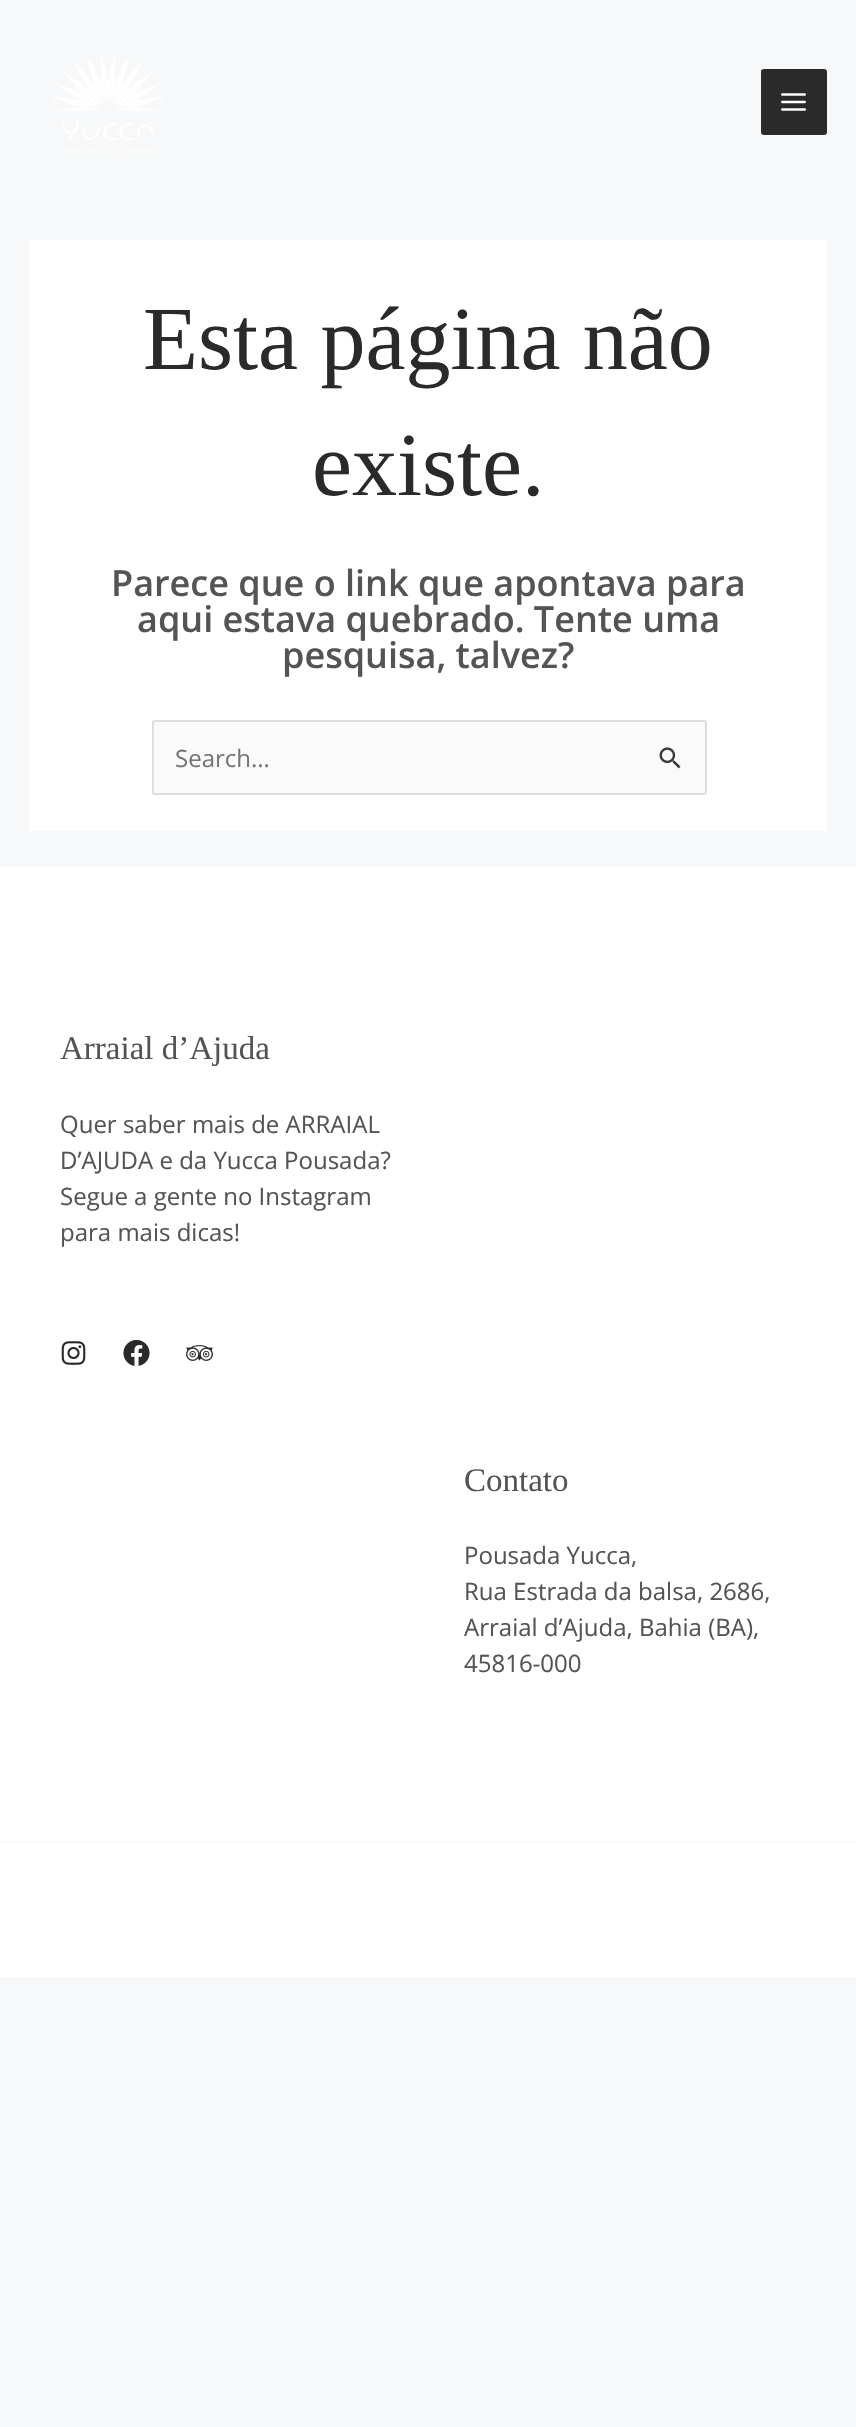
void draw(SkCanvas* canvas) {
  SkPaint paint;
  paint.setAntiAlias(true);
  auto face = [&](const char* family, int weight, float size, bool italic = false) {
    SkFontStyle style(weight, SkFontStyle::kNormal_Width,
      italic ? SkFontStyle::kItalic_Slant : SkFontStyle::kUpright_Slant);
    SkFont result(fontMgr->matchFamilyStyle(family, style), size);
    result.setSubpixel(true);
    return result;
  };
  auto paste = [&](const char* path, float x, float y, float w, float h) {
    auto image = SkImages::DeferredFromEncodedData(SkData::MakeFromFileName(path));
    canvas->drawImageRect(image, SkRect::MakeXYWH(x, y, w, h), SkSamplingOptions());
  };
  canvas->clear(0xfff7f8f9);
  paste("img/1.png", 52, 55, 112, 99);
  paint.setColor(0xff2a2a2a);
  canvas->drawRoundRect(SkRect::MakeXYWH(761, 69, 66, 66), 3, 3, paint);
  paste("img/2.png", 781, 93, 25, 18);
  paint.setColor(0xffffffff);
  canvas->drawRect(SkRect::MakeXYWH(30, 240, 797, 591), paint);
  paint.setColor(0xfffafafa);
  canvas->drawRoundRect(SkRect::MakeXYWH(153, 721, 553, 73), 2, 2, paint);
  paint.setStroke(true);
  paint.setStrokeWidth(2);
  paint.setColor(0xffdddddd);
  canvas->drawRoundRect(SkRect::MakeXYWH(153, 721, 553, 73), 2, 2, paint);
  paste("img/3.png", 659, 747, 22, 22);
  paint.setStroke(false);
  paint.setColor(0xffffffff);
  canvas->drawRect(SkRect::MakeXYWH(0, 867, 856, 1110), paint);
  paste("img/4.png", 61, 1341, 25, 24);
  paste("img/5.png", 123, 1340, 27, 26);
  paste("img/6.png", 186, 1345, 27, 16);
  paint.setColor(0xfff7f8f9);
  canvas->drawRect(SkRect::MakeXYWH(0, 1841, 856, 2), paint);
  auto f0 = face("Liberation Serif", 400, 90);
  paint.setColor(0xff2a2a2a);
  canvas->drawString("Esta página não", 143, 369, f0, paint);
  canvas->drawString("existe.", 312, 495, f0, paint);
  auto f1 = face("Open Sans", 600, 36);
  paint.setColor(0xff545454);
  {
    const struct { const char* s; float x, y; } items[] = {
      {"Parece que o link que apontava para", 111, 596},
      {"aqui estava quebrado. Tente uma", 137, 632},
      {"pesquisa, talvez?", 282, 668},
    };
    for (auto [s, x, y] : items) {
      canvas->drawString(s, x, y, f1, paint);
    }
  }
  auto f2 = face("Open Sans", 400, 24);
  paint.setColor(0xff757575);
  canvas->drawString("Search...", 175, 767, f2, paint);
  auto f3 = face("Liberation Serif", 400, 33);
  paint.setColor(0xff545454);
  canvas->drawString("Arraial d’Ajuda", 60, 1059, f3, paint);
  {
    const struct { const char* s; float x, y; } items[] = {
      {"Quer saber mais de ARRAIAL", 60, 1133},
      {"D’AJUDA e da Yucca Pousada?", 60, 1169},
      {"Segue a gente no Instagram", 60, 1205},
      {"para mais dicas!", 60, 1241},
    };
    for (auto [s, x, y] : items) {
      canvas->drawString(s, x, y, f2, paint);
    }
  }
  canvas->drawString("Contato", 464, 1491, f3, paint);
  {
    const struct { const char* s; float x, y; } items[] = {
      {"Pousada Yucca,", 464, 1564},
      {"Rua Estrada da balsa, 2686,", 464, 1600},
      {"Arraial d’Ajuda, Bahia (BA),", 464, 1636},
      {"45816-000", 464, 1672},
    };
    for (auto [s, x, y] : items) {
      canvas->drawString(s, x, y, f2, paint);
    }
  }
}
